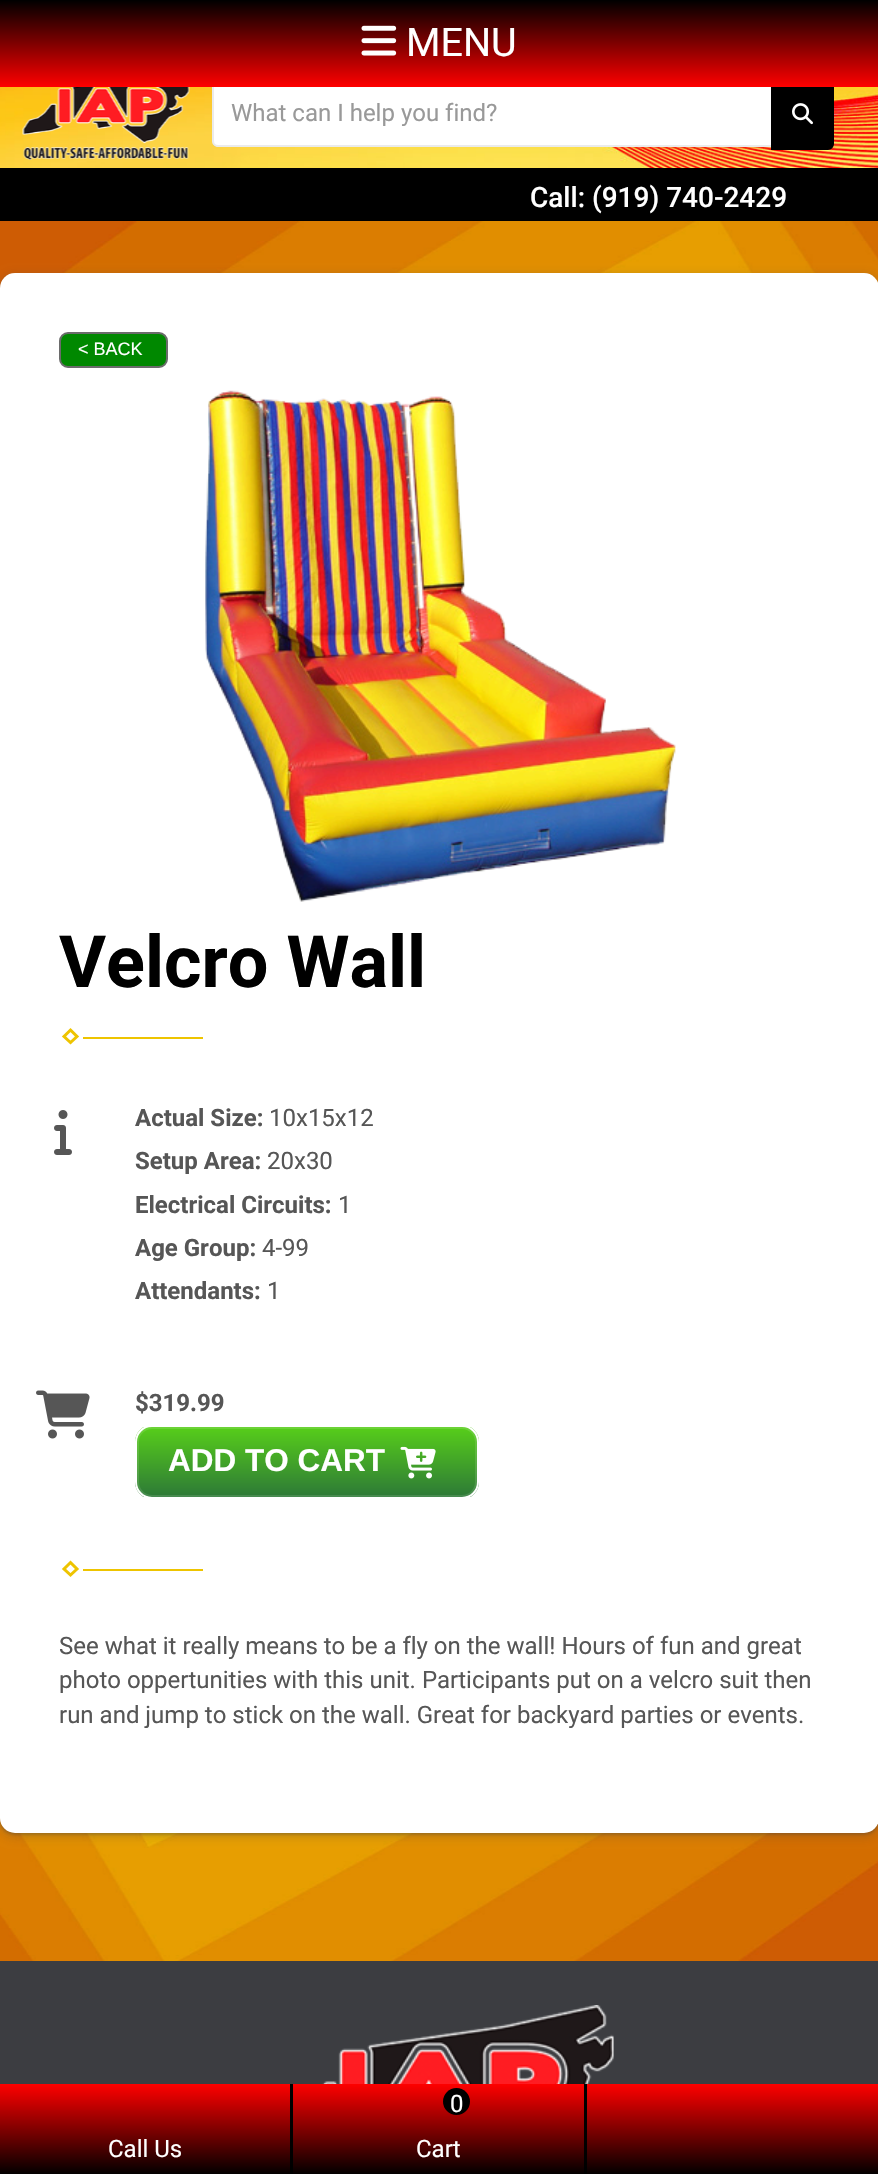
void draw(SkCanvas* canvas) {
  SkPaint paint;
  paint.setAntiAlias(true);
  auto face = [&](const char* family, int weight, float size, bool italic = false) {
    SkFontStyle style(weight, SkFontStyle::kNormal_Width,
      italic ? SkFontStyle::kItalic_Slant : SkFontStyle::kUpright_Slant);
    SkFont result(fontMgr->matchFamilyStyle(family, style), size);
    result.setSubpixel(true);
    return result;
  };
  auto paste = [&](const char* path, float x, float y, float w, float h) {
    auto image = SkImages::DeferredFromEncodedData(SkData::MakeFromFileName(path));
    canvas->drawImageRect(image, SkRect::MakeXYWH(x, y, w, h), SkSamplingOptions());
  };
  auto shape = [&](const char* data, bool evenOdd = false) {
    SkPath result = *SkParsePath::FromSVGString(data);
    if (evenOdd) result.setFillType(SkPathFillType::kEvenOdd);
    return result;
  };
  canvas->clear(0xffffffff);
  paste("img/1.png", 0, 221, 878, 1740);
  paste("img/2.png", 0, 87, 878, 81);
  paint.setColor(0xffffffff);
  canvas->drawPath(shape("M218 80H773V147H218C214.5 147 212 144.5 212 141V86C212 82.5 214.5 80 218 80Z"), paint);
  paint.setStroke(true);
  paint.setStrokeWidth(2);
  paint.setColor(0x14000000);
  canvas->drawPath(shape("M218 81H772V146H218C215 146 213 144 213 141V86C213 83 215 81 218 81Z"), paint);
  paint.setStroke(false);
  paint.setColor(0xff000000);
  canvas->drawPath(shape("M772.5 81.5H828C830.5 81.5 832.5 83.5 832.5 86V144C832.5 146.5 830.5 148.5 828 148.5H772.5Z"), paint);
  paint.setStroke(true);
  paint.setStrokeWidth(3);
  canvas->drawPath(shape("M772.5 81.5H828C830.5 81.5 832.5 83.5 832.5 86V144C832.5 146.5 830.5 148.5 828 148.5H772.5Z"), paint);
  paint.setStroke(false);
  {
    const SkColor colors[] = {0xff000000, 0xfffe0000};
    const float stops[] = {0, 1};
    const SkPoint ends[] = {{440, 0}, {440, 87}};
    paint.setShader(SkGradientShader::MakeLinear(ends, colors, stops, 2, SkTileMode::kClamp));
    paint.setAlpha(255);
  }
  canvas->drawRect(SkRect::MakeXYWH(0, 0, 878, 87), paint);
  paste("img/3.png", 361, 25, 36, 31);
  paste("img/4.png", 22, 87, 168, 73);
  paste("img/5.png", 792, 103, 21, 22);
  paint.setShader(nullptr);
  paint.setColor(0xff000000);
  canvas->drawRect(SkRect::MakeXYWH(0, 168, 878, 53), paint);
  {
    const SkColor colors[] = {0xfffe0000, 0xff000000};
    const float stops[] = {0, 1};
    const SkPoint ends[] = {{440, 2084}, {440, 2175}};
    paint.setShader(SkGradientShader::MakeLinear(ends, colors, stops, 2, SkTileMode::kClamp));
    paint.setAlpha(255);
  }
  canvas->drawRect(SkRect::MakeXYWH(0, 2084, 878, 90), paint);
  paint.setShader(nullptr);
  paint.setColor(0xff000000);
  canvas->drawRect(SkRect::MakeXYWH(290, 2084, 3, 90), paint);
  canvas->drawRect(SkRect::MakeXYWH(584, 2084, 3, 90), paint);
  canvas->drawCircle(456.5f, 2101.5f, 13.5f, paint);
  paint.setColor(0x263c4043);
  paint.setMaskFilter(SkMaskFilter::MakeBlur(kNormal_SkBlurStyle, 4.5f));
  canvas->drawRoundRect(SkRect::MakeXYWH(-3, 273, 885, 1566), 18, 18, paint);
  paint.setMaskFilter(nullptr);
  paint.setColor(0x4d3c4043);
  paint.setMaskFilter(SkMaskFilter::MakeBlur(kNormal_SkBlurStyle, 1.5f));
  canvas->drawRoundRect(SkRect::MakeXYWH(0, 275, 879, 1560), 15, 15, paint);
  paint.setMaskFilter(nullptr);
  paint.setColor(0xffffffff);
  canvas->drawRoundRect(SkRect::MakeXYWH(0, 273, 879, 1560), 15, 15, paint);
  paint.setColor(0xff008800);
  canvas->drawRoundRect(SkRect::MakeXYWH(60, 333, 107, 34), 8, 8, paint);
  paint.setStroke(true);
  paint.setStrokeWidth(2);
  paint.setColor(0xff6b6b6b);
  canvas->drawRoundRect(SkRect::MakeXYWH(60, 333, 107, 34), 8, 8, paint);
  paste("img/6.png", 205, 390, 471, 512);
  paint.setStrokeWidth(3);
  paint.setColor(0xffeec400);
  canvas->drawPath(shape("M70.5 1030L77 1036.5L70.5 1042.5L64 1036.5Z"), paint);
  paint.setStroke(false);
  canvas->drawRect(SkRect::MakeXYWH(83, 1037, 120, 2), paint);
  paste("img/7.png", 54, 1110, 18, 45);
  paste("img/8.png", 36, 1390, 54, 49);
  canvas->save();
  canvas->clipPath(shape("M152 1425H462C471.5 1425 479 1432.5 479 1442V1482C479 1491.5 471.5 1499 462 1499H152C142.5 1499 135 1491.5 135 1482V1442C135 1432.5 142.5 1425 152 1425Z"), true);
  {
    const SkColor colors[] = {0xff57ce1a, 0xff2d7937};
    const float stops[] = {0, 1};
    const SkPoint ends[] = {{307, 1427}, {307, 1497}};
    paint.setShader(SkGradientShader::MakeLinear(ends, colors, stops, 2, SkTileMode::kClamp));
    paint.setAlpha(255);
  }
  canvas->drawRect(SkRect::MakeXYWH(135, 1427, 344, 70), paint);
  canvas->restore();
  paint.setStroke(true);
  paint.setStrokeWidth(2);
  paint.setShader(nullptr);
  paint.setColor(0x1fffffff);
  canvas->drawRoundRect(SkRect::MakeXYWH(138, 1428, 338, 68), 14, 14, paint);
  paint.setColor(0xffffffff);
  canvas->drawRoundRect(SkRect::MakeXYWH(136, 1426, 342, 72), 16, 16, paint);
  paste("img/9.png", 400, 1446, 36, 33);
  paint.setStrokeWidth(3);
  paint.setColor(0xffeec400);
  canvas->drawPath(shape("M70.5 1562.5L77 1569L70.5 1575L64 1569Z"), paint);
  paint.setStroke(false);
  canvas->drawRect(SkRect::MakeXYWH(83, 1569, 120, 2), paint);
  paint.setColor(0xff3c3d41);
  canvas->drawRect(SkRect::MakeXYWH(0, 1961, 878, 123), paint);
  paste("img/10.png", 322, 2005, 292, 79);
  auto f0 = face("Roboto", 400, 39.5f);
  paint.setColor(0xffffffff);
  canvas->drawString("MENU", 406, 56, f0, paint);
  auto f1 = face("Roboto", 400, 24);
  paint.setColor(0xff999999);
  canvas->drawString("What can I help you find?", 231, 121, f1, paint);
  auto f2 = face("Roboto", 500, 28);
  paint.setColor(0xffffffff);
  canvas->drawString("Call: (919) 740-2429", 530, 207, f2, paint);
  {
    const struct { const char* s; float x, y; } items[] = {
      {"Call Us", 108, 2157},
      {"0", 450, 2112},
      {"Cart", 416, 2157},
    };
    for (auto [s, x, y] : items) {
      canvas->drawString(s, x, y, f1, paint);
    }
  }
  auto f3 = face("Liberation Sans", 400, 18);
  canvas->drawString("< BACK", 78, 355, f3, paint);
  auto f4 = face("Roboto", 700, 72);
  paint.setColor(0xff000000);
  canvas->drawString("Velcro Wall", 59, 987, f4, paint);
  auto f5 = face("Roboto", 700, 24);
  paint.setColor(0xff565656);
  canvas->drawString("Actual Size:", 135, 1126, f5, paint);
  canvas->drawString("10x15x12", 269, 1126, f1, paint);
  canvas->drawString("Setup Area:", 135, 1169, f5, paint);
  canvas->drawString("20x30", 267, 1169, f1, paint);
  canvas->drawString("Electrical Circuits:", 135, 1213, f5, paint);
  canvas->drawString("1", 338, 1213, f1, paint);
  canvas->drawString("Age Group:", 135, 1256, f5, paint);
  canvas->drawString("4-99", 262, 1256, f1, paint);
  canvas->drawString("Attendants:", 135, 1299, f5, paint);
  canvas->drawString("1", 267, 1299, f1, paint);
  canvas->drawString("$319.99", 135, 1411, f5, paint);
  auto f6 = face("Liberation Sans", 700, 31.5f);
  paint.setColor(0xffffffff);
  canvas->drawString("ADD TO CART", 168, 1471, f6, paint);
  paint.setColor(0xff565656);
  {
    const struct { const char* s; float x, y; } items[] = {
      {"See what it really means to be a fly on the wall! Hours of fun and great", 59, 1654},
      {"photo oppertunities with this unit. Participants put on a velcro suit then", 59, 1688},
      {"run and jump to stick on the wall. Great for backyard parties or events.", 59, 1723},
    };
    for (auto [s, x, y] : items) {
      canvas->drawString(s, x, y, f1, paint);
    }
  }
}
